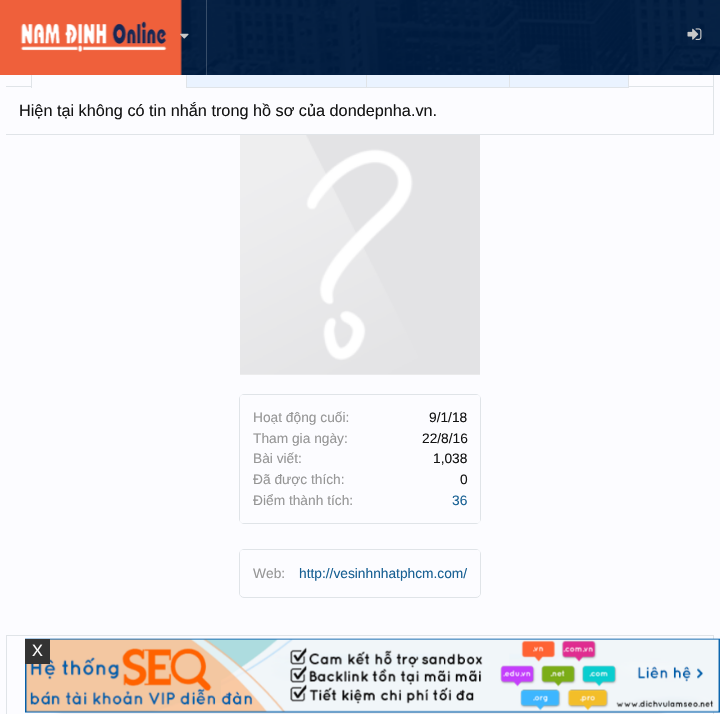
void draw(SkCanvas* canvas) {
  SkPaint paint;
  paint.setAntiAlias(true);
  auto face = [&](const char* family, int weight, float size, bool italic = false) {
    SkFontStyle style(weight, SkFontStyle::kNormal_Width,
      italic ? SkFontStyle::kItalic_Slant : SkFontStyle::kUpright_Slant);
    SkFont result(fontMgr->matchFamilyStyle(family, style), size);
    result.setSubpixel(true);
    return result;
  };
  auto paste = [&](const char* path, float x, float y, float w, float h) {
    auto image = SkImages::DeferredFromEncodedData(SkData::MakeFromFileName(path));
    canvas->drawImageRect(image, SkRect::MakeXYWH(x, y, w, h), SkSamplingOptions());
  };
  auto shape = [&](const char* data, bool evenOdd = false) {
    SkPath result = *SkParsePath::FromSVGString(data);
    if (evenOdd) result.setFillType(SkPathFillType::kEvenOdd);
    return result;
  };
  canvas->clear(0xfffcfcff);
  paint.setColor(0xffe0e4e8);
  canvas->drawRect(SkRect::MakeXYWH(6, 86, 707, 1), paint);
  paint.setColor(0xfffcfcff);
  canvas->drawRect(SkRect::MakeXYWH(32, 86, 154, 1), paint);
  paint.setColor(0xffe0e4e8);
  canvas->drawPath(shape("M38 58H181C185 58 188 60 188 64V88H31V64C31 60 34 58 38 58ZM38 59H181C184 59 186 61 186 64V88H32V64C32 61 35 59 38 59Z", true), paint);
  paint.setColor(0xffef603b);
  canvas->drawRect(SkRect::MakeXYWH(0, 0, 182, 75), paint);
  paint.setColor(0xffeaf3ff);
  canvas->drawRect(SkRect::MakeXYWH(187, 75, 179, 12), paint);
  paint.setStroke(true);
  paint.setStrokeWidth(1);
  paint.setColor(0xffe0e4e8);
  canvas->drawRect(SkRect::MakeXYWH(186.5f, 58.5f, 181, 29), paint);
  paint.setStroke(false);
  paint.setColor(0xffeaf3ff);
  canvas->drawRect(SkRect::MakeXYWH(367, 75, 142, 12), paint);
  paint.setStroke(true);
  paint.setColor(0xffe0e4e8);
  canvas->drawRect(SkRect::MakeXYWH(366.5f, 58.5f, 143, 29), paint);
  paint.setStroke(false);
  paint.setColor(0xffeaf3ff);
  canvas->drawRect(SkRect::MakeXYWH(510, 75, 118, 12), paint);
  paint.setStroke(true);
  paint.setColor(0xffe0e4e8);
  canvas->drawRect(SkRect::MakeXYWH(509.5f, 58.5f, 119, 29), paint);
  paste("img/1.png", 180, 0, 540, 75);
  paste("img/2.png", 20, 21, 147, 31);
  paint.setStroke(false);
  paint.setColor(0x33ffffff);
  canvas->drawRect(SkRect::MakeXYWH(206, 0, 1, 75), paint);
  paste("img/3.png", 180, 33, 9, 6);
  paste("img/4.png", 687, 28, 15, 12);
  paint.setColor(0xffe0e4e8);
  canvas->drawRect(SkRect::MakeXYWH(713, 75, 1, 60), paint);
  canvas->drawRect(SkRect::MakeXYWH(6, 134, 708, 1), paint);
  paste("img/5.png", 240, 135, 240, 240);
  paint.setStroke(true);
  canvas->drawRoundRect(SkRect::MakeXYWH(239.5f, 394.5f, 241, 129), 4.5f, 4.5f, paint);
  paint.setStroke(false);
  paint.setColor(0xfffcfcff);
  canvas->drawRoundRect(SkRect::MakeXYWH(240, 395, 240, 128), 2.5f, 2.5f, paint);
  paint.setStroke(true);
  paint.setColor(0xffe0e4e8);
  canvas->drawRoundRect(SkRect::MakeXYWH(239.5f, 549.5f, 241, 48), 4.5f, 4.5f, paint);
  paint.setStroke(false);
  paint.setColor(0xfffcfcff);
  canvas->drawRoundRect(SkRect::MakeXYWH(240, 550, 240, 46), 2.5f, 2.5f, paint);
  paint.setStroke(true);
  paint.setColor(0xffe0e4e8);
  canvas->drawRect(SkRect::MakeXYWH(6.5f, 635.5f, 707, 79), paint);
  paint.setStroke(false);
  paint.setColor(0x33000000);
  paint.setMaskFilter(SkMaskFilter::MakeBlur(kNormal_SkBlurStyle, 3));
  canvas->drawRect(SkRect::MakeXYWH(58, 664, 605, 47), paint);
  paint.setMaskFilter(nullptr);
  paste("img/6.png", 25, 638, 695, 75);
  paint.setColor(0xff333333);
  canvas->drawRect(SkRect::MakeXYWH(25, 639, 25, 25), paint);
  auto f0 = face("Liberation Sans", 400, 16.25f);
  paint.setColor(0xff141414);
  canvas->drawString("Hiện tại không có tin nhắn trong hồ sơ của dondepnha.vn.", 19, 116, f0, paint);
  auto f1 = face("Liberation Sans", 400, 13.75f);
  paint.setColor(0xff969696);
  canvas->drawString("Hoạt động cuối:", 253, 422, f1, paint);
  paint.setColor(0xff141414);
  canvas->drawString("9/1/18", 429, 422, f1, paint);
  paint.setColor(0xff969696);
  canvas->drawString("Tham gia ngày:", 253, 443, f1, paint);
  paint.setColor(0xff141414);
  canvas->drawString("22/8/16", 422, 443, f1, paint);
  paint.setColor(0xff969696);
  canvas->drawString("Bài viết:", 253, 463, f1, paint);
  paint.setColor(0xff141414);
  canvas->drawString("1,038", 433, 463, f1, paint);
  paint.setColor(0xff969696);
  canvas->drawString("Đã được thích:", 253, 484, f1, paint);
  paint.setColor(0xff141414);
  canvas->drawString("0", 460, 484, f1, paint);
  paint.setColor(0xff969696);
  canvas->drawString("Điểm thành tích:", 253, 505, f1, paint);
  paint.setColor(0xff176093);
  canvas->drawString("36", 452, 505, f1, paint);
  paint.setColor(0xff969696);
  canvas->drawString("Web:", 253, 578, f1, paint);
  paint.setColor(0xff176093);
  canvas->drawString("http://vesinhnhatphcm.com/", 299, 578, f1, paint);
  paint.setColor(0xffffffff);
  canvas->drawString("X", 32, 656, f0, paint);
}
